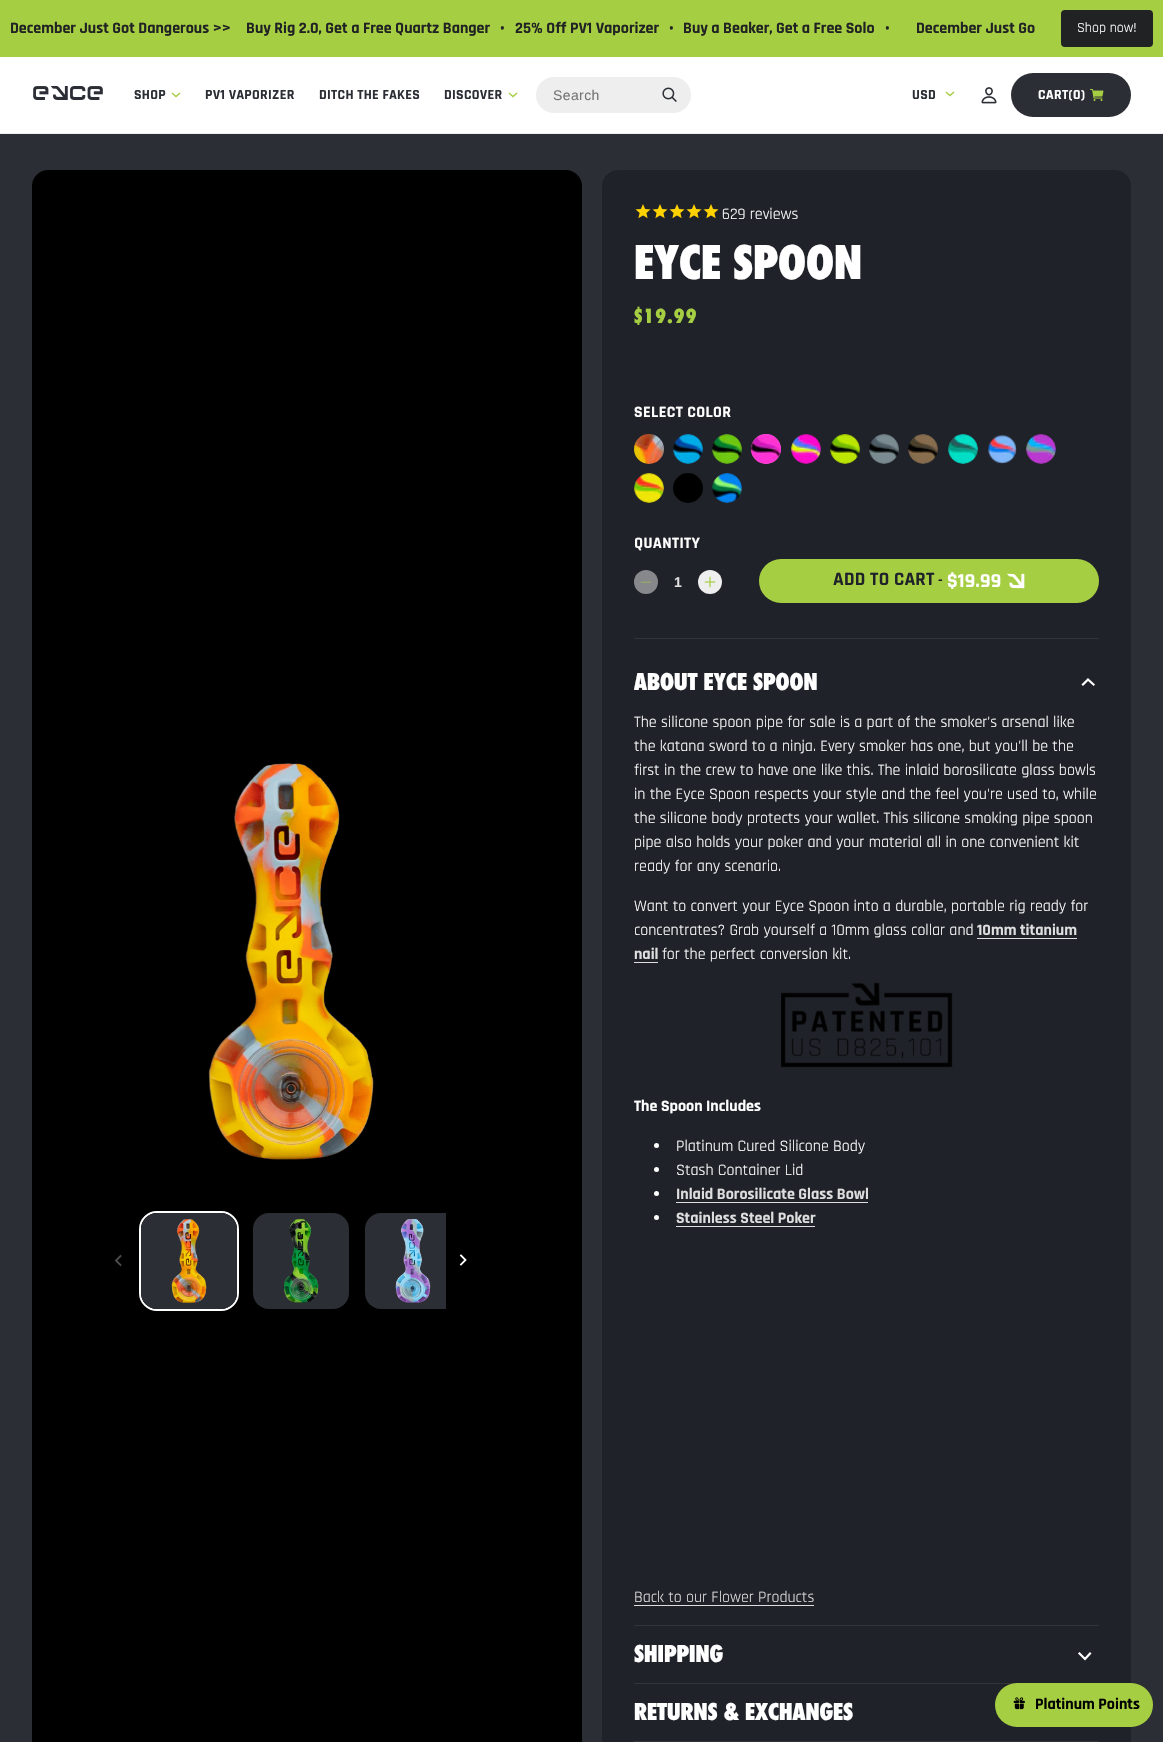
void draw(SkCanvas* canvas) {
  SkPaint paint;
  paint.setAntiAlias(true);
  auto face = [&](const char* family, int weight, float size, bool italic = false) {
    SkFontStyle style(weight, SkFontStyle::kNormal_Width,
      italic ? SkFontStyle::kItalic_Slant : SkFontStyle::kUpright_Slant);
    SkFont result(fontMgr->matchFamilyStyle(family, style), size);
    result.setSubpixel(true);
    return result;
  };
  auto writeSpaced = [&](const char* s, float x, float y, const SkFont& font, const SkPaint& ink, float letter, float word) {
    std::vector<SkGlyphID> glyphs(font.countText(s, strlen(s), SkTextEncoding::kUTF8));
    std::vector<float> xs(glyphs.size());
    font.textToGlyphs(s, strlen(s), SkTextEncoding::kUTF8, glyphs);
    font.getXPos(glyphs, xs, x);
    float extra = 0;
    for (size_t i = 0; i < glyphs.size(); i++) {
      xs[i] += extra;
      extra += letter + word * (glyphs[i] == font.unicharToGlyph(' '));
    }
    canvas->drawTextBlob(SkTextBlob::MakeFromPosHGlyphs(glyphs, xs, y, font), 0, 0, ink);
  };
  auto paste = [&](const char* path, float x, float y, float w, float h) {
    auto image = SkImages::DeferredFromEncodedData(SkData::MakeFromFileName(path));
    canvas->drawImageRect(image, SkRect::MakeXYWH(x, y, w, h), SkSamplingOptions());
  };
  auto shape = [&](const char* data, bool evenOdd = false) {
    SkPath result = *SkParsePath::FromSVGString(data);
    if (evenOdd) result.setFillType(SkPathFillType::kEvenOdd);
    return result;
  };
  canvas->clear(0xff2c2e35);
  paint.setColor(0xffa6ce42);
  canvas->drawRect(SkRect::MakeXYWH(0, 0, 1163, 57), paint);
  paint.setColor(0xff202223);
  canvas->drawRoundRect(SkRect::MakeXYWH(1061, 10, 92, 37), 4, 4, paint);
  paint.setColor(0xffffffff);
  canvas->drawRect(SkRect::MakeXYWH(0, 57, 1163, 76), paint);
  paint.setColor(0xffeeeeef);
  canvas->drawRect(SkRect::MakeXYWH(0, 133, 1163, 1), paint);
  paste("img/1.png", 33, 86, 70, 14);
  paint.setStroke(true);
  paint.setStrokeWidth(1.4f);
  paint.setStrokeCap(SkPaint::kSquare_Cap);
  paint.setColor(0xffa6ce42);
  canvas->drawPath(shape("M172.5 93.5L176 96.5L179.5 93.5"), paint);
  canvas->drawPath(shape("M509.5 93.5L513 96.5L516.5 93.5"), paint);
  paint.setStroke(false);
  paint.setColor(0xffeeeeee);
  canvas->drawRoundRect(SkRect::MakeXYWH(536, 77, 155, 36), 18, 18, paint);
  paste("img/2.png", 662, 87, 15, 15);
  paint.setStroke(true);
  paint.setColor(0xffa6ce42);
  canvas->drawPath(shape("M946.5 92.5L950 95.5L953.5 92.5"), paint);
  paste("img/3.png", 981, 87, 16, 17);
  paint.setStroke(false);
  paint.setColor(0xff2c2e35);
  canvas->drawRoundRect(SkRect::MakeXYWH(1011, 73, 120, 44), 22, 22, paint);
  paste("img/4.png", 1090, 89, 14, 12);
  paint.setColor(0xff000000);
  canvas->drawRoundRect(SkRect::MakeXYWH(32, 170, 550, 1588), 16, 16, paint);
  paste("img/5.png", 208, 763, 166, 397);
  paint.setStroke(true);
  paint.setStrokeWidth(1.8f);
  paint.setColor(0xff4d4d4d);
  canvas->drawPath(shape("M120.5 1256L116 1260.5L120.5 1265"), paint);
  paint.setStrokeWidth(2);
  paint.setStrokeCap(SkPaint::kButt_Cap);
  paint.setColor(0xffffffff);
  canvas->drawRoundRect(SkRect::MakeXYWH(140, 1212, 98, 98), 17, 17, paint);
  paint.setStroke(false);
  paint.setColor(0xff2c2e35);
  canvas->drawRoundRect(SkRect::MakeXYWH(141, 1213, 96, 96), 16, 16, paint);
  paste("img/6.png", 171, 1219, 36, 84);
  canvas->drawRoundRect(SkRect::MakeXYWH(253, 1213, 96, 96), 16, 16, paint);
  paste("img/7.png", 284, 1219, 35, 84);
  canvas->save();
  canvas->clipRect(SkRect::MakeXYWH(136, 1208, 310, 106));
  canvas->drawRoundRect(SkRect::MakeXYWH(365, 1213, 96, 96), 16, 16, paint);
  canvas->restore();
  paste("img/8.png", 395, 1219, 36, 84);
  paint.setStroke(true);
  paint.setStrokeWidth(1.8f);
  paint.setStrokeCap(SkPaint::kSquare_Cap);
  paint.setColor(0xffffffff);
  canvas->drawPath(shape("M461 1255.5L465.5 1260L461 1264.5"), paint);
  paint.setStroke(false);
  paint.setColor(0xff202229);
  canvas->drawRoundRect(SkRect::MakeXYWH(602, 170, 529, 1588), 16, 16, paint);
  paste("img/9.png", 635, 204, 16, 15);
  paste("img/9.png", 652, 204, 16, 15);
  paste("img/9.png", 669, 204, 16, 15);
  paste("img/9.png", 686, 204, 16, 15);
  paste("img/9.png", 703, 204, 16, 15);
  paste("img/10.png", 634, 434, 30, 30);
  paste("img/11.png", 673, 434, 30, 30);
  paste("img/12.png", 712, 434, 30, 30);
  paint.setColor(0xffff54da);
  canvas->drawCircle(766, 449, 15, paint);
  paste("img/13.png", 751, 434, 30, 30);
  paste("img/14.png", 791, 434, 30, 30);
  paste("img/15.png", 830, 434, 30, 30);
  paste("img/16.png", 869, 434, 30, 30);
  paste("img/17.png", 908, 434, 30, 30);
  paste("img/18.png", 948, 434, 30, 30);
  paste("img/19.png", 988, 435, 29, 29);
  paste("img/20.png", 1026, 434, 30, 30);
  paste("img/21.png", 634, 473, 30, 30);
  paint.setColor(0xff000000);
  canvas->drawCircle(688, 488, 15, paint);
  paste("img/22.png", 712, 473, 30, 30);
  paint.setColor(0xff87888c);
  canvas->drawCircle(646, 582, 12, paint);
  paste("img/23.png", 640, 581, 12, 2);
  paint.setColor(0xffeeeeee);
  canvas->drawCircle(710, 582, 12, paint);
  paste("img/24.png", 704, 576, 12, 12);
  paint.setColor(0xffa6ce42);
  canvas->drawRoundRect(SkRect::MakeXYWH(759, 559, 340, 44), 22, 22, paint);
  paste("img/25.png", 1007, 573, 18, 16);
  paint.setColor(0xff32343a);
  canvas->drawRect(SkRect::MakeXYWH(634, 638, 465, 1), paint);
  canvas->drawRect(SkRect::MakeXYWH(634, 1625, 465, 1), paint);
  paint.setStroke(true);
  paint.setStrokeWidth(2.2f);
  paint.setColor(0xffffffff);
  canvas->drawPath(shape("M1093.5 684.5L1088 679.5L1083 684.5"), paint);
  paint.setStroke(false);
  paint.setColor(0xffdededf);
  canvas->drawRect(SkRect::MakeXYWH(977, 938, 100, 1), paint);
  canvas->drawRect(SkRect::MakeXYWH(634, 962, 24, 1), paint);
  paste("img/26.png", 781, 982, 172, 86);
  paint.setColor(0xffffffff);
  canvas->drawCircle(656.5f, 1145.5f, 2.5f, paint);
  canvas->drawCircle(656.5f, 1169.5f, 2.5f, paint);
  canvas->drawCircle(656.5f, 1193.5f, 2.5f, paint);
  paint.setColor(0xffdededf);
  canvas->drawRect(SkRect::MakeXYWH(676, 1202, 192, 1), paint);
  paint.setColor(0xffffffff);
  canvas->drawCircle(656.5f, 1217.5f, 2.5f, paint);
  {
    const struct { float x, y, w, h; SkColor color; } items[] = {
      {676, 1226, 139, 1, 0xffdededf},
      {634, 1605, 180, 1, 0xffdededf},
      {634, 1683, 383, 1, 0xff32343a},
    };
    for (auto [x, y, w, h, color] : items) {
      paint.setColor(color);
      canvas->drawRect(SkRect::MakeXYWH(x, y, w, h), paint);
    }
  }
  paint.setStroke(true);
  paint.setColor(0xffffffff);
  canvas->drawPath(shape("M1079.5 1653.5L1085 1659L1090 1653.5"), paint);
  paint.setStroke(false);
  paint.setColor(0xff32343a);
  canvas->drawRect(SkRect::MakeXYWH(634, 1741, 465, 1), paint);
  paint.setColor(0xffa5ce42);
  canvas->drawRoundRect(SkRect::MakeXYWH(995, 1683, 158, 44), 22, 22, paint);
  paste("img/27.png", 1013, 1697, 12, 13);
  auto f0 = face("Rajdhani", 700, 16);
  paint.setColor(0xff202223);
  {
    const struct { const char* s; float x, y; } items[] = {
      {"December Just Got Dangerous >>", 10, 33},
      {"Buy Rig 2.0, Get a Free Quartz Banger", 246, 33},
      {"•", 500, 33},
      {"25% Off PV1 Vaporizer", 515, 33},
      {"•", 669, 33},
      {"Buy a Beaker, Get a Free Solo", 683, 33},
      {"•", 885, 33},
      {"December Just Go", 916, 33},
    };
    for (auto [s, x, y] : items) {
      canvas->drawString(s, x, y, f0, paint);
    }
  }
  auto f1 = face("Rajdhani", 400, 14);
  paint.setColor(0xffffffff);
  canvas->drawString("Shop now!", 1077, 32, f1, paint);
  auto f2 = face("Rajdhani", 700, 14);
  paint.setColor(0xff2c2e35);
  {
    const struct { const char* s; float x, y; } items[] = {
      {"SHOP", 134, 99},
      {"PV1 VAPORIZER", 205, 99},
      {"DITCH THE FAKES", 319, 99},
      {"DISCOVER", 444, 99},
    };
    for (auto [s, x, y] : items) {
      writeSpaced(s, x, y, f2, paint, 0.3f, 0);
    }
  }
  auto f3 = face("Liberation Sans", 400, 14);
  paint.setColor(0xff757575);
  writeSpaced("Search", 553, 100, f3, paint, 0.4f, 0);
  paint.setColor(0xff2c2e35);
  writeSpaced("USD", 912, 99, f2, paint, 0.3f, 0);
  paint.setColor(0xffffffff);
  writeSpaced("CART(0)", 1038, 99, f2, paint, 0.3f, 0);
  auto f4 = face("Rajdhani", 400, 16);
  canvas->drawString("629 reviews", 722, 219, f4, paint);
  auto f5 = face("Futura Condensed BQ", 800, 48);
  canvas->drawString("EYCE SPOON", 634, 279, f5, paint);
  auto f6 = face("Futura Condensed BQ", 800, 20);
  paint.setColor(0xffa6ce42);
  writeSpaced("$19.99", 634, 323, f6, paint, 1, 0);
  paint.setColor(0xffffffff);
  writeSpaced("SELECT COLOR", 634, 417, f0, paint, 0.4f, 0);
  writeSpaced("QUANTITY", 634, 548, f0, paint, 0.4f, 0);
  auto f7 = face("Liberation Sans", 700, 14);
  paint.setColor(0xffdededf);
  canvas->drawString("1", 674, 587, f7, paint);
  auto f8 = face("Rajdhani", 700, 19);
  paint.setColor(0xff202229);
  writeSpaced("ADD TO CART", 833, 585, f8, paint, 0.3f, 0);
  auto f9 = face("Rajdhani", 700, 15);
  writeSpaced("-", 938, 585, f9, paint, 0.3f, 0);
  auto f10 = face("Rajdhani", 700, 20);
  paint.setColor(0xffffffff);
  writeSpaced("$19.99", 947, 587, f10, paint, 0.3f, 0);
  auto f11 = face("Futura Condensed BQ", 800, 24);
  canvas->drawString("ABOUT EYCE SPOON", 634, 690, f11, paint);
  {
    const struct { const char* s; float x, y; } items[] = {
      {"The silicone spoon pipe for sale is a part of the smoker's arsenal like", 634, 727},
      {"the katana sword to a ninja. Every smoker has one, but you'll be the", 634, 751},
      {"first in the crew to have one like this. The inlaid borosilicate glass bowls", 634, 775},
      {"in the Eyce Spoon respects your style and the feel you're used to, while", 634, 799},
      {"the silicone body protects your wallet. This silicone smoking pipe spoon", 634, 823},
      {"pipe also holds your poker and your material all in one convenient kit", 634, 847},
      {"ready for any scenario.", 634, 871},
      {"Want to convert your Eyce Spoon into a durable, portable rig ready for", 634, 911},
      {"concentrates? Grab yourself a 10mm glass collar and", 634, 935},
    };
    for (auto [s, x, y] : items) {
      canvas->drawString(s, x, y, f4, paint);
    }
  }
  paint.setColor(0xffdededf);
  canvas->drawString("10mm titanium", 977, 935, f0, paint);
  canvas->drawString("nail", 634, 959, f0, paint);
  paint.setColor(0xffffffff);
  canvas->drawString("for the perfect conversion kit.", 662, 959, f4, paint);
  canvas->save();
  canvas->clipRect(SkRect::MakeXYWH(634, 711, 465, 899));
  canvas->drawString("The Spoon Includes", 634, 1111, f0, paint);
  canvas->restore();
  canvas->drawString("Platinum Cured Silicone Body", 676, 1151, f4, paint);
  canvas->drawString("Stash Container Lid", 676, 1175, f4, paint);
  paint.setColor(0xffdededf);
  canvas->drawString("Inlaid Borosilicate Glass Bowl", 676, 1199, f0, paint);
  canvas->drawString("Stainless Steel Poker", 676, 1223, f0, paint);
  canvas->drawString("Back to our Flower Products", 634, 1602, f4, paint);
  paint.setColor(0xffffffff);
  canvas->drawString("SHIPPING", 634, 1662, f11, paint);
  canvas->drawString("RETURNS & EXCHANGES", 634, 1720, f11, paint);
  paint.setColor(0xff000000);
  canvas->drawString("Platinum Points", 1035, 1709, f0, paint);
}
